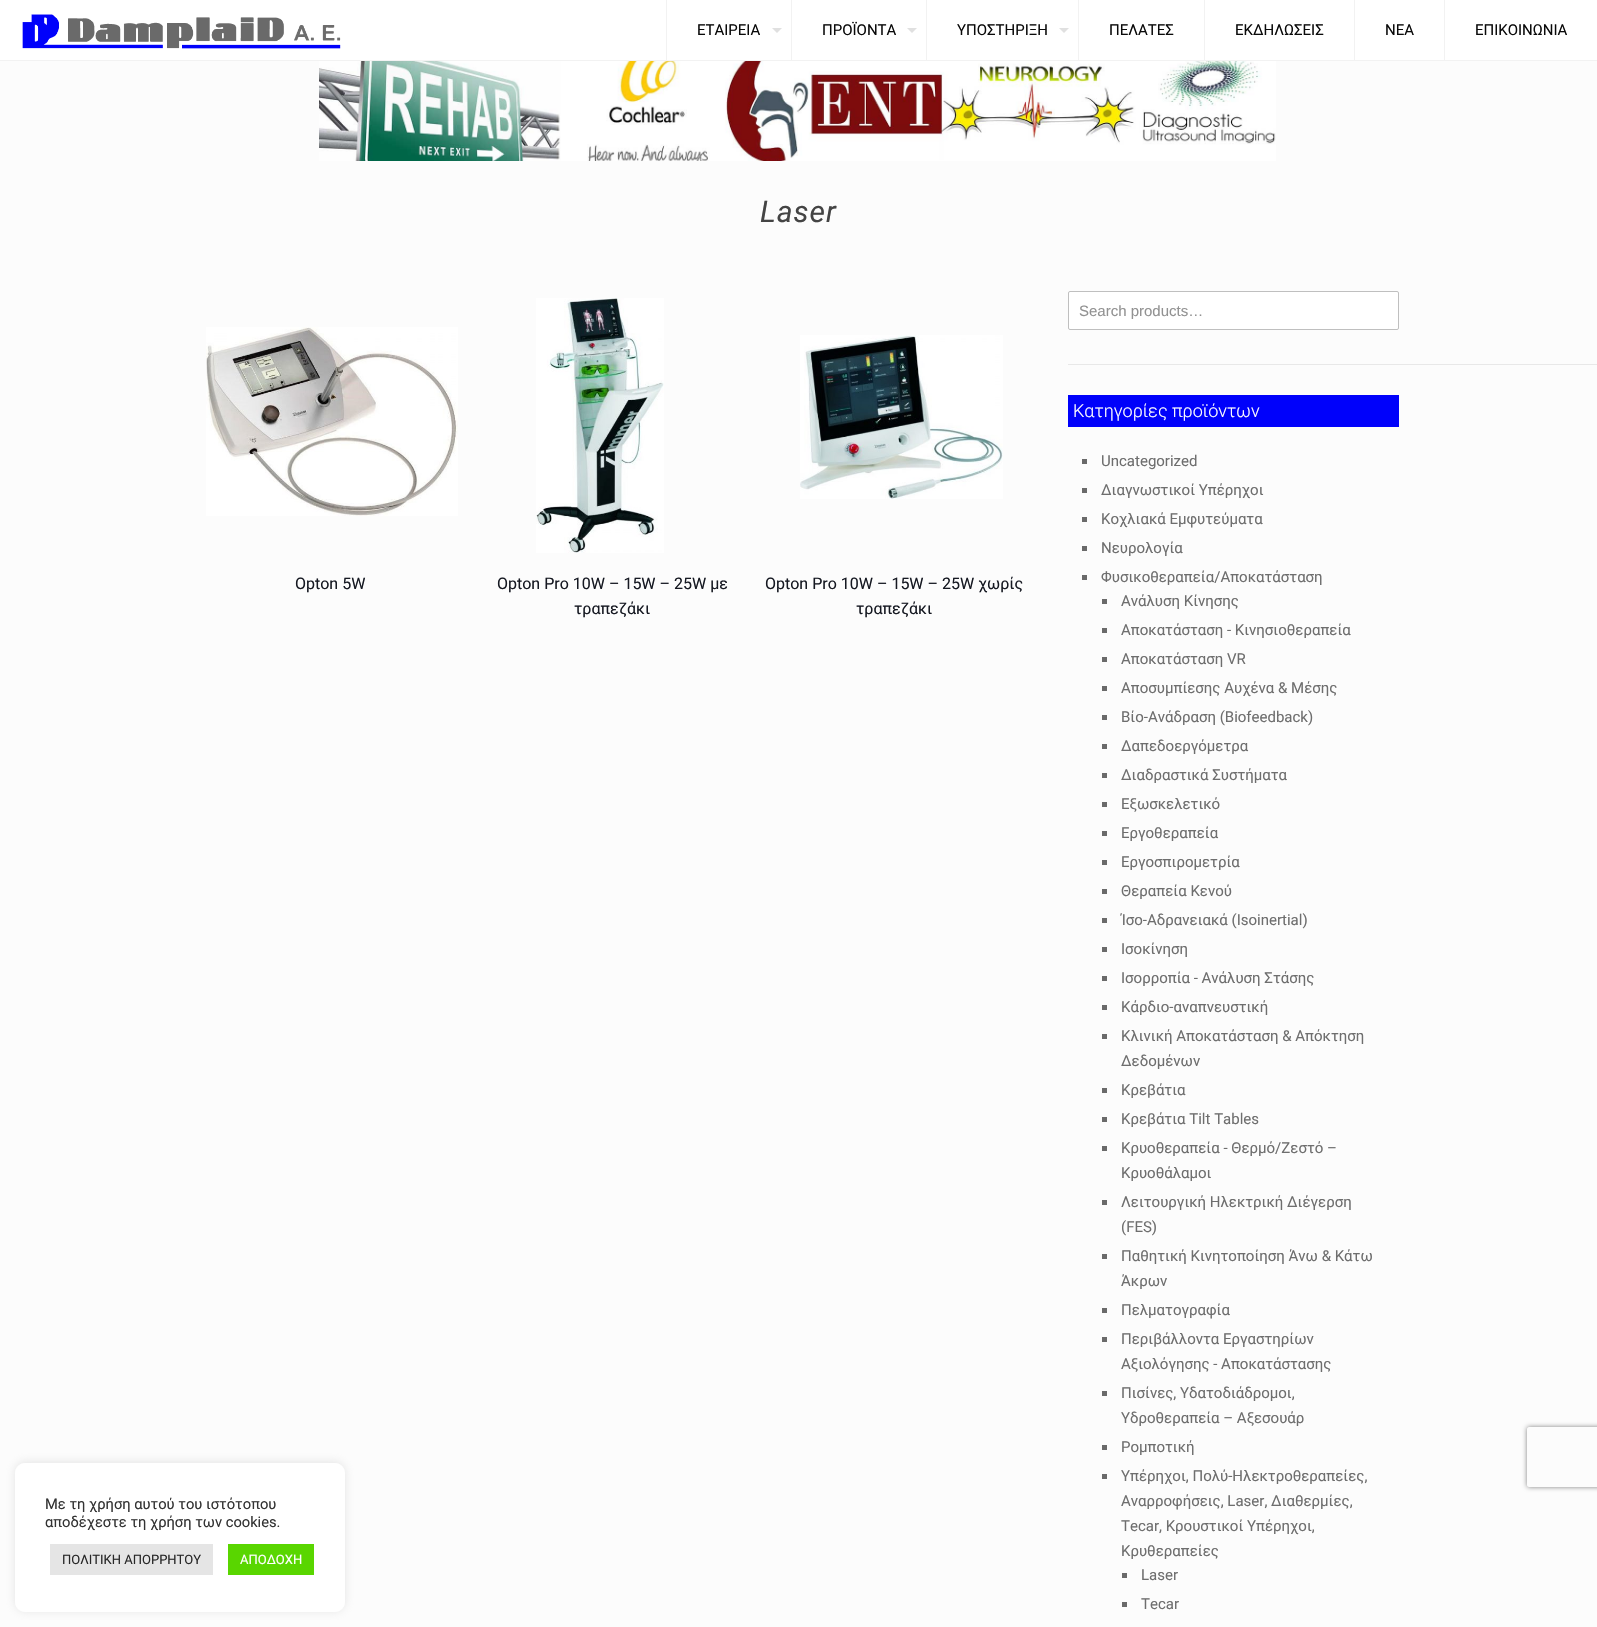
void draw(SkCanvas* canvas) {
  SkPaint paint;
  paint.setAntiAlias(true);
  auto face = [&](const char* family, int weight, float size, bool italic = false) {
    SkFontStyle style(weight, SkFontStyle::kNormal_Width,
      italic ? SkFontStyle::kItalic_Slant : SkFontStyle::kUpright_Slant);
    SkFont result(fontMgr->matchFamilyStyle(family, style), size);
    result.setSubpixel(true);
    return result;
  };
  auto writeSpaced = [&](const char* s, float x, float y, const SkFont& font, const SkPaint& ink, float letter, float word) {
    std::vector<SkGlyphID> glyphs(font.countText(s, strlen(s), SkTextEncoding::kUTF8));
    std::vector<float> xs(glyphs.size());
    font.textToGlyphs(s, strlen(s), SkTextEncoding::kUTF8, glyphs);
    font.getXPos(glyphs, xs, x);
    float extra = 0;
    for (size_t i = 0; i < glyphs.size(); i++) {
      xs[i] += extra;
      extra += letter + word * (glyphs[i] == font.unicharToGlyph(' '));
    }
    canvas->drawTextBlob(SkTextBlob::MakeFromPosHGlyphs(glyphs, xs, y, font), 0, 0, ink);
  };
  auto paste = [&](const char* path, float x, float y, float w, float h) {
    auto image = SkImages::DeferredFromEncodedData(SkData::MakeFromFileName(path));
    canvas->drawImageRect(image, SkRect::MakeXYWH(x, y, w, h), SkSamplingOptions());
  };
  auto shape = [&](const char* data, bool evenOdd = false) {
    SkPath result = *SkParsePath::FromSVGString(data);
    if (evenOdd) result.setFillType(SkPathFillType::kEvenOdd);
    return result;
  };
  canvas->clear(0xfffcfcfc);
  paint.setColor(0xffffffff);
  canvas->drawRect(SkRect::MakeXYWH(0, 0, 1597, 60), paint);
  paint.setColor(0xfff2f2f2);
  canvas->drawRect(SkRect::MakeXYWH(0, 60, 1597, 1), paint);
  paste("img/1.png", 22, 14, 319, 35);
  canvas->drawRect(SkRect::MakeXYWH(791, 0, 1, 60), paint);
  canvas->drawRect(SkRect::MakeXYWH(666, 0, 1, 60), paint);
  paint.setColor(0xffe0e0e0);
  canvas->drawPath(shape("M772 28H782L777 33Z"), paint);
  paint.setColor(0xfff2f2f2);
  canvas->drawRect(SkRect::MakeXYWH(926, 0, 1, 60), paint);
  paint.setColor(0xffe0e0e0);
  canvas->drawPath(shape("M907 28H917L912 33Z"), paint);
  paint.setColor(0xfff2f2f2);
  canvas->drawRect(SkRect::MakeXYWH(1078, 0, 1, 60), paint);
  paint.setColor(0xffe0e0e0);
  canvas->drawPath(shape("M1059 28H1069L1064 33Z"), paint);
  {
    const struct { float x, y, w, h; SkColor color; } items[] = {
      {1204, 0, 1, 60, 0xfff2f2f2},
      {1354, 0, 1, 60, 0xfff2f2f2},
      {1444, 0, 1, 60, 0xfff2f2f2},
    };
    for (auto [x, y, w, h, color] : items) {
      paint.setColor(color);
      canvas->drawRect(SkRect::MakeXYWH(x, y, w, h), paint);
    }
  }
  paste("img/2.png", 319, 61, 957, 100);
  paste("img/3.png", 206, 327, 252, 189);
  paste("img/4.png", 536, 298, 128, 255);
  paste("img/5.png", 800, 335, 203, 164);
  paint.setColor(0xffffffff);
  canvas->drawRoundRect(SkRect::MakeXYWH(1068.5f, 291.5f, 330, 38), 1.5f, 1.5f, paint);
  paint.setStroke(true);
  paint.setStrokeWidth(1);
  paint.setColor(0xffbfbfbf);
  canvas->drawRoundRect(SkRect::MakeXYWH(1068.5f, 291.5f, 330, 38), 1.5f, 1.5f, paint);
  paint.setStroke(false);
  {
    const struct { float x, y, w, h; SkColor color; } items[] = {
      {1068, 364, 529, 1, 0xffe8e8e8},
      {1068, 395, 331, 32, 0xff0001fb},
      {1082, 459, 5, 5, 0xff6a6a6a},
      {1082, 488, 5, 5, 0xff6a6a6a},
      {1082, 517, 5, 5, 0xff6a6a6a},
      {1082, 546, 5, 5, 0xff6a6a6a},
      {1082, 575, 5, 5, 0xff6a6a6a},
      {1102, 599, 5, 5, 0xff6a6a6a},
      {1102, 628, 5, 5, 0xff6a6a6a},
      {1102, 657, 5, 5, 0xff6a6a6a},
      {1102, 686, 5, 5, 0xff6a6a6a},
      {1102, 715, 5, 5, 0xff6a6a6a},
      {1102, 744, 5, 5, 0xff6a6a6a},
      {1102, 773, 5, 5, 0xff6a6a6a},
      {1102, 802, 5, 5, 0xff6a6a6a},
      {1102, 831, 5, 5, 0xff6a6a6a},
      {1102, 860, 5, 5, 0xff6a6a6a},
      {1102, 889, 5, 5, 0xff6a6a6a},
      {1102, 918, 5, 5, 0xff6a6a6a},
      {1102, 947, 5, 5, 0xff6a6a6a},
      {1102, 976, 5, 5, 0xff6a6a6a},
      {1102, 1005, 5, 5, 0xff6a6a6a},
      {1102, 1034, 5, 5, 0xff6a6a6a},
      {1102, 1088, 5, 5, 0xff6a6a6a},
      {1102, 1117, 5, 5, 0xff6a6a6a},
      {1102, 1146, 5, 5, 0xff6a6a6a},
      {1102, 1200, 5, 5, 0xff6a6a6a},
      {1102, 1254, 5, 5, 0xff6a6a6a},
      {1102, 1308, 5, 5, 0xff6a6a6a},
      {1102, 1337, 5, 5, 0xff6a6a6a},
      {1102, 1391, 5, 5, 0xff6a6a6a},
      {1102, 1445, 5, 5, 0xff6a6a6a},
      {1102, 1474, 5, 5, 0xff6a6a6a},
      {1122, 1573, 5, 5, 0xff6a6a6a},
      {1122, 1602, 5, 5, 0xff6a6a6a},
    };
    for (auto [x, y, w, h, color] : items) {
      paint.setColor(color);
      canvas->drawRect(SkRect::MakeXYWH(x, y, w, h), paint);
    }
  }
  canvas->save();
  canvas->clipPath(shape("M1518 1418H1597V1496H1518ZM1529 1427H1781C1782 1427 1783 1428 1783 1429V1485C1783 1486 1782 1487 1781 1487H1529C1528 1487 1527 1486 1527 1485V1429C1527 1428 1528 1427 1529 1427Z", true), true);
  paint.setColor(0xff808080);
  paint.setMaskFilter(SkMaskFilter::MakeBlur(kNormal_SkBlurStyle, 2.5f));
  canvas->drawRoundRect(SkRect::MakeXYWH(1527, 1427, 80, 60), 2, 2, paint);
  paint.setMaskFilter(nullptr);
  canvas->restore();
  canvas->save();
  canvas->clipPath(shape("M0 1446H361V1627H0ZM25 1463H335C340.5 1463 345 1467.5 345 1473V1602C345 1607.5 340.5 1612 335 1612H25C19.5 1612 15 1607.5 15 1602V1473C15 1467.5 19.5 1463 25 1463Z", true), true);
  paint.setColor(0x4dacabab);
  paint.setMaskFilter(SkMaskFilter::MakeBlur(kNormal_SkBlurStyle, 5));
  canvas->drawRoundRect(SkRect::MakeXYWH(15, 1462, 330, 149), 10, 10, paint);
  paint.setMaskFilter(nullptr);
  canvas->restore();
  paint.setColor(0xc9ffffff);
  canvas->drawRoundRect(SkRect::MakeXYWH(15, 1463, 330, 149), 10, 10, paint);
  paint.setColor(0xffe5e5e5);
  canvas->drawRect(SkRect::MakeXYWH(50, 1544, 163, 31), paint);
  paint.setColor(0xff59d600);
  canvas->drawRect(SkRect::MakeXYWH(228, 1544, 86, 31), paint);
  auto f0 = face("Roboto", 400, 15);
  paint.setColor(0xff0a0a0a);
  {
    const struct { const char* s; float x, y; } items[] = {
      {"ΕΤΑΙΡΕΙΑ", 697, 35},
      {"ΠΡΟΪΟΝΤΑ", 822, 35},
      {"ΥΠΟΣΤΗΡΙΞΗ", 957, 35},
      {"ΠΕΛΑΤΕΣ", 1109, 35},
      {"ΕΚΔΗΛΩΣΕΙΣ", 1235, 35},
      {"NEA", 1385, 35},
      {"ΕΠΙΚΟΙΝΩΝΙΑ", 1475, 35},
    };
    for (auto [s, x, y] : items) {
      canvas->drawString(s, x, y, f0, paint);
    }
  }
  auto f1 = face("Roboto", 400, 30, true);
  paint.setColor(0xff444444);
  writeSpaced("Laser", 760, 222, f1, paint, 1, 0);
  auto f2 = face("Roboto", 400, 16);
  paint.setColor(0xff161922);
  {
    const struct { const char* s; float x, y; } items[] = {
      {"Opton 5W", 295, 589},
      {"Opton Pro 10W – 15W – 25W με", 497, 589},
      {"τραπεζάκι", 574, 614},
      {"Opton Pro 10W – 15W – 25W χωρίς", 765, 589},
      {"τραπεζάκι", 856, 614},
    };
    for (auto [s, x, y] : items) {
      canvas->drawString(s, x, y, f2, paint);
    }
  }
  auto f3 = face("Liberation Sans", 400, 15);
  paint.setColor(0xff929292);
  canvas->drawString("Search products…", 1079, 316, f3, paint);
  auto f4 = face("Roboto", 300, 18);
  paint.setColor(0xffffffff);
  canvas->drawString("Κατηγορίες προϊόντων", 1073, 417, f4, paint);
  paint.setColor(0xff6e6e6e);
  {
    const struct { const char* s; float x, y; } items[] = {
      {"Uncategorized", 1101, 466},
      {"Διαγνωστικοί Υπέρηχοι", 1101, 495},
      {"Κοχλιακά Εμφυτεύματα", 1101, 524},
      {"Νευρολογία", 1101, 553},
      {"Φυσικοθεραπεία/Αποκατάσταση", 1101, 582},
      {"Ανάλυση Κίνησης", 1121, 606},
      {"Αποκατάσταση - Κινησιοθεραπεία", 1121, 635},
      {"Αποκατάσταση VR", 1121, 664},
      {"Αποσυμπίεσης Αυχένα & Μέσης", 1121, 693},
      {"Βίο-Ανάδραση (Biofeedback)", 1121, 722},
      {"Δαπεδοεργόμετρα", 1121, 751},
      {"Διαδραστικά Συστήματα", 1121, 780},
      {"Εξωσκελετικό", 1121, 809},
      {"Εργοθεραπεία", 1121, 838},
      {"Εργοσπιρομετρία", 1121, 867},
      {"Θεραπεία Κενού", 1121, 896},
      {"Ίσο-Αδρανειακά (Isoinertial)", 1121, 925},
      {"Ισοκίνηση", 1121, 954},
      {"Ισορροπία - Ανάλυση Στάσης", 1121, 983},
      {"Κάρδιο-αναπνευστική", 1121, 1012},
      {"Κλινική Αποκατάσταση & Απόκτηση", 1121, 1041},
      {"Δεδομένων", 1121, 1066},
      {"Κρεβάτια", 1121, 1095},
      {"Κρεβάτια Tilt Tables", 1121, 1124},
      {"Κρυοθεραπεία - Θερμό/Ζεστό –", 1121, 1153},
      {"Κρυοθάλαμοι", 1121, 1178},
      {"Λειτουργική Ηλεκτρική Διέγερση", 1121, 1207},
      {"(FES)", 1121, 1232},
      {"Παθητική Κινητοποίηση Άνω & Κάτω", 1121, 1261},
      {"Άκρων", 1121, 1286},
      {"Πελματογραφία", 1121, 1315},
      {"Περιβάλλοντα Εργαστηρίων", 1121, 1344},
      {"Αξιολόγησης - Αποκατάστασης", 1121, 1369},
      {"Πισίνες, Υδατοδιάδρομοι,", 1121, 1398},
      {"Υδροθεραπεία – Αξεσουάρ", 1121, 1423},
      {"Ρομποτική", 1121, 1452},
      {"Υπέρηχοι, Πολύ-Ηλεκτροθεραπείες,", 1121, 1481},
      {"Αναρροφήσεις, Laser, Διαθερμίες,", 1121, 1506},
      {"Tecar, Κρουστικοί Υπέρηχοι,", 1121, 1531},
      {"Κρυθεραπείες", 1121, 1556},
      {"Laser", 1141, 1580},
      {"Tecar", 1141, 1609},
    };
    for (auto [s, x, y] : items) {
      canvas->drawString(s, x, y, f0, paint);
    }
  }
  auto f5 = face("Roboto", 400, 14.7f);
  paint.setColor(0xff333333);
  canvas->drawString("Με τη χρήση αυτού του ιστότοπου", 45, 1509, f5, paint);
  canvas->drawString("αποδέχεστε τη χρήση των cookies.", 45, 1527, f5, paint);
  auto f6 = face("Roboto", 400, 13);
  paint.setColor(0xff282828);
  canvas->drawString("ΠΟΛΙΤΙΚΗ ΑΠΟΡΡΗΤΟΥ", 62, 1564, f6, paint);
  paint.setColor(0xffffffff);
  canvas->drawString("ΑΠΟΔΟΧΗ", 240, 1564, f6, paint);
}
